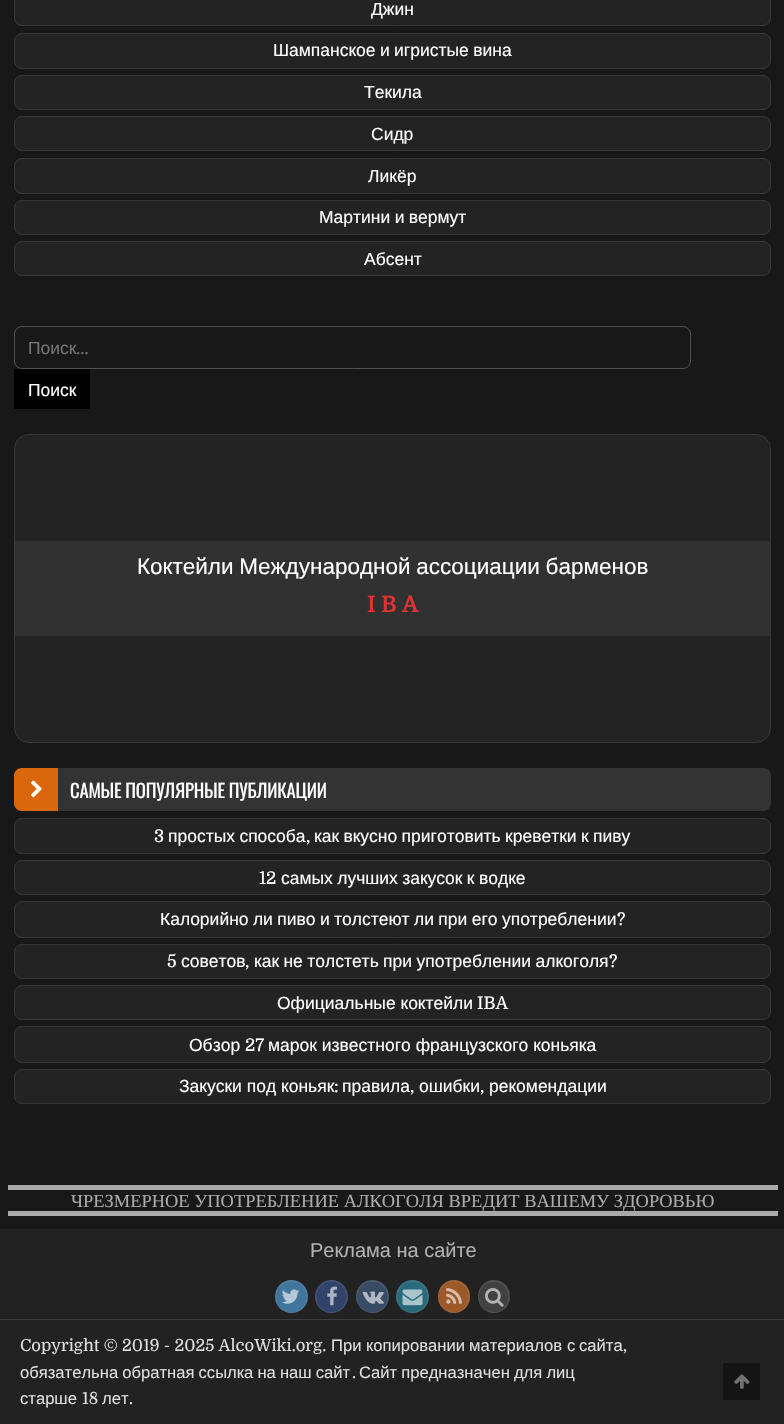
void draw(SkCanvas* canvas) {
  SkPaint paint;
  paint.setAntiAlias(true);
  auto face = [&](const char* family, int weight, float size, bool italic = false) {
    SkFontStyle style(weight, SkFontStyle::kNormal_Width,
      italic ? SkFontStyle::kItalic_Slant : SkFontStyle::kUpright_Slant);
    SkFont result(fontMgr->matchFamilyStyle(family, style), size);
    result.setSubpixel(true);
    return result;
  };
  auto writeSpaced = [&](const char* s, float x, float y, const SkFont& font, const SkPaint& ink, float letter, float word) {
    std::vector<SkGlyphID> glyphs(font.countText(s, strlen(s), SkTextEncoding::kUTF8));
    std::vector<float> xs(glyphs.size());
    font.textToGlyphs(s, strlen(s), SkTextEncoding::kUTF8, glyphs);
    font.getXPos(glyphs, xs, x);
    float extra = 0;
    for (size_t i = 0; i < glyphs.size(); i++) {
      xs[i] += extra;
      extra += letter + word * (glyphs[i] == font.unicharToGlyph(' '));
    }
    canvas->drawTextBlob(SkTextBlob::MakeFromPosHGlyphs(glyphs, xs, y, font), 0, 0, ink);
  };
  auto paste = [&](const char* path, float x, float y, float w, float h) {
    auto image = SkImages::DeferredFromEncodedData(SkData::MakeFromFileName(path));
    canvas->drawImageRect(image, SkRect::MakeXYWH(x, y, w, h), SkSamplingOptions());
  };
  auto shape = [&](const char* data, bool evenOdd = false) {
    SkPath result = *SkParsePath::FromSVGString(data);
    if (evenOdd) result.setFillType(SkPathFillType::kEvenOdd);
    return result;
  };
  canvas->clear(0xff181818);
  paint.setColor(0xff232323);
  canvas->drawRoundRect(SkRect::MakeXYWH(14.5f, -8.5f, 756, 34), 7.5f, 7.5f, paint);
  paint.setStroke(true);
  paint.setStrokeWidth(1);
  paint.setColor(0xff373737);
  canvas->drawRoundRect(SkRect::MakeXYWH(14.5f, -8.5f, 756, 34), 7.5f, 7.5f, paint);
  paint.setStroke(false);
  paint.setColor(0xff232323);
  canvas->drawRoundRect(SkRect::MakeXYWH(14.5f, 33.5f, 756, 35), 7.5f, 7.5f, paint);
  paint.setStroke(true);
  paint.setColor(0xff373737);
  canvas->drawRoundRect(SkRect::MakeXYWH(14.5f, 33.5f, 756, 35), 7.5f, 7.5f, paint);
  paint.setStroke(false);
  paint.setColor(0xff232323);
  canvas->drawRoundRect(SkRect::MakeXYWH(14.5f, 75.5f, 756, 34), 7.5f, 7.5f, paint);
  paint.setStroke(true);
  paint.setColor(0xff373737);
  canvas->drawRoundRect(SkRect::MakeXYWH(14.5f, 75.5f, 756, 34), 7.5f, 7.5f, paint);
  paint.setStroke(false);
  paint.setColor(0xff232323);
  canvas->drawRoundRect(SkRect::MakeXYWH(14.5f, 116.5f, 756, 34), 7.5f, 7.5f, paint);
  paint.setStroke(true);
  paint.setColor(0xff373737);
  canvas->drawRoundRect(SkRect::MakeXYWH(14.5f, 116.5f, 756, 34), 7.5f, 7.5f, paint);
  paint.setStroke(false);
  paint.setColor(0xff232323);
  canvas->drawRoundRect(SkRect::MakeXYWH(14.5f, 158.5f, 756, 35), 7.5f, 7.5f, paint);
  paint.setStroke(true);
  paint.setColor(0xff373737);
  canvas->drawRoundRect(SkRect::MakeXYWH(14.5f, 158.5f, 756, 35), 7.5f, 7.5f, paint);
  paint.setStroke(false);
  paint.setColor(0xff232323);
  canvas->drawRoundRect(SkRect::MakeXYWH(14.5f, 200.5f, 756, 34), 7.5f, 7.5f, paint);
  paint.setStroke(true);
  paint.setColor(0xff373737);
  canvas->drawRoundRect(SkRect::MakeXYWH(14.5f, 200.5f, 756, 34), 7.5f, 7.5f, paint);
  paint.setStroke(false);
  paint.setColor(0xff232323);
  canvas->drawRoundRect(SkRect::MakeXYWH(14.5f, 241.5f, 756, 34), 7.5f, 7.5f, paint);
  paint.setStroke(true);
  paint.setColor(0xff373737);
  canvas->drawRoundRect(SkRect::MakeXYWH(14.5f, 241.5f, 756, 34), 7.5f, 7.5f, paint);
  paint.setColor(0xff525252);
  canvas->drawRoundRect(SkRect::MakeXYWH(14.5f, 326.5f, 676, 42), 7.5f, 7.5f, paint);
  paint.setStroke(false);
  paint.setColor(0xff000000);
  canvas->drawRect(SkRect::MakeXYWH(14, 369, 76, 40), paint);
  paint.setColor(0xff232323);
  canvas->drawRoundRect(SkRect::MakeXYWH(14.5f, 434.5f, 756, 308), 14.5f, 14.5f, paint);
  paint.setStroke(true);
  paint.setColor(0xff373737);
  canvas->drawRoundRect(SkRect::MakeXYWH(14.5f, 434.5f, 756, 308), 14.5f, 14.5f, paint);
  paint.setStroke(false);
  paint.setColor(0xff313131);
  canvas->drawRect(SkRect::MakeXYWH(15, 541, 755, 95), paint);
  paint.setColor(0xff333333);
  canvas->drawRoundRect(SkRect::MakeXYWH(14, 768, 757, 43), 8, 8, paint);
  paint.setColor(0xffda670c);
  canvas->drawPath(shape("M22 768H58V811H22C17.5 811 14 807.5 14 803V776C14 771.5 17.5 768 22 768Z"), paint);
  paste("img/1.png", 31, 780, 11, 18);
  paint.setColor(0xff232323);
  canvas->drawRoundRect(SkRect::MakeXYWH(14.5f, 818.5f, 756, 35), 7.5f, 7.5f, paint);
  paint.setStroke(true);
  paint.setColor(0xff373737);
  canvas->drawRoundRect(SkRect::MakeXYWH(14.5f, 818.5f, 756, 35), 7.5f, 7.5f, paint);
  paint.setStroke(false);
  paint.setColor(0xff232323);
  canvas->drawRoundRect(SkRect::MakeXYWH(14.5f, 860.5f, 756, 34), 7.5f, 7.5f, paint);
  paint.setStroke(true);
  paint.setColor(0xff373737);
  canvas->drawRoundRect(SkRect::MakeXYWH(14.5f, 860.5f, 756, 34), 7.5f, 7.5f, paint);
  paint.setStroke(false);
  paint.setColor(0xff232323);
  canvas->drawRoundRect(SkRect::MakeXYWH(14.5f, 901.5f, 756, 36), 7.5f, 7.5f, paint);
  paint.setStroke(true);
  paint.setColor(0xff373737);
  canvas->drawRoundRect(SkRect::MakeXYWH(14.5f, 901.5f, 756, 36), 7.5f, 7.5f, paint);
  paint.setStroke(false);
  paint.setColor(0xff232323);
  canvas->drawRoundRect(SkRect::MakeXYWH(14.5f, 944.5f, 756, 34), 7.5f, 7.5f, paint);
  paint.setStroke(true);
  paint.setColor(0xff373737);
  canvas->drawRoundRect(SkRect::MakeXYWH(14.5f, 944.5f, 756, 34), 7.5f, 7.5f, paint);
  paint.setStroke(false);
  paint.setColor(0xff232323);
  canvas->drawRoundRect(SkRect::MakeXYWH(14.5f, 985.5f, 756, 34), 7.5f, 7.5f, paint);
  paint.setStroke(true);
  paint.setColor(0xff373737);
  canvas->drawRoundRect(SkRect::MakeXYWH(14.5f, 985.5f, 756, 34), 7.5f, 7.5f, paint);
  paint.setStroke(false);
  paint.setColor(0xff232323);
  canvas->drawRoundRect(SkRect::MakeXYWH(14.5f, 1026.5f, 756, 36), 7.5f, 7.5f, paint);
  paint.setStroke(true);
  paint.setColor(0xff373737);
  canvas->drawRoundRect(SkRect::MakeXYWH(14.5f, 1026.5f, 756, 36), 7.5f, 7.5f, paint);
  paint.setStroke(false);
  paint.setColor(0xff232323);
  canvas->drawRoundRect(SkRect::MakeXYWH(14.5f, 1069.5f, 756, 34), 7.5f, 7.5f, paint);
  paint.setStroke(true);
  paint.setColor(0xff373737);
  canvas->drawRoundRect(SkRect::MakeXYWH(14.5f, 1069.5f, 756, 34), 7.5f, 7.5f, paint);
  paint.setStroke(false);
  {
    const struct { float x, y, w, h; SkColor color; } items[] = {
      {8, 1185, 770, 5, 0xffaaaaaa},
      {8, 1211, 770, 5, 0xffaaaaaa},
      {0, 1229, 784, 90, 0xff222222},
    };
    for (auto [x, y, w, h, color] : items) {
      paint.setColor(color);
      canvas->drawRect(SkRect::MakeXYWH(x, y, w, h), paint);
    }
  }
  paint.setColor(0xff41759c);
  canvas->drawCircle(291.5f, 1296.5f, 16.5f, paint);
  paint.setColor(0x24a7a7a7);
  canvas->drawPath(shape("M291.5 1280C282.5 1280 275 1287.5 275 1296.5C275 1305.5 282.5 1313 291.5 1313C300.5 1313 308 1305.5 308 1296.5C308 1287.5 300.5 1280 291.5 1280ZM291 1282C272 1282 272 1312 291 1312C311 1312 311 1282 291 1282Z", true), paint);
  paste("img/2.png", 282, 1289, 18, 15);
  paint.setColor(0xff314369);
  canvas->drawCircle(331.5f, 1296.5f, 16.5f, paint);
  paint.setColor(0x24a7a7a7);
  canvas->drawPath(shape("M331.5 1280C322.5 1280 315 1287.5 315 1296.5C315 1305.5 322.5 1313 331.5 1313C340.5 1313 348 1305.5 348 1296.5C348 1287.5 340.5 1280 331.5 1280ZM331 1282C312 1282 312 1312 331 1312C351 1312 351 1282 331 1282Z", true), paint);
  paste("img/3.png", 327, 1286, 10, 20);
  paint.setColor(0xff374b63);
  canvas->drawCircle(372.5f, 1296.5f, 16.5f, paint);
  paint.setColor(0x24a7a7a7);
  canvas->drawPath(shape("M372.5 1280C363.5 1280 356 1287.5 356 1296.5C356 1305.5 363.5 1313 372.5 1313C381.5 1313 389 1305.5 389 1296.5C389 1287.5 381.5 1280 372.5 1280ZM372 1282C353 1282 353 1312 372 1312C392 1312 392 1282 372 1282Z", true), paint);
  paste("img/4.png", 362, 1291, 22, 13);
  paint.setColor(0xff286a7b);
  canvas->drawCircle(412.5f, 1296.5f, 16.5f, paint);
  paint.setColor(0x24a7a7a7);
  canvas->drawPath(shape("M412.5 1280C403.5 1280 396 1287.5 396 1296.5C396 1305.5 403.5 1313 412.5 1313C421.5 1313 429 1305.5 429 1296.5C429 1287.5 421.5 1280 412.5 1280ZM412 1282C393 1282 393 1312 412 1312C432 1312 432 1282 412 1282Z", true), paint);
  paste("img/5.png", 402, 1289, 21, 17);
  paint.setColor(0xff9c5a2a);
  canvas->drawRoundRect(SkRect::MakeXYWH(438, 1280, 32, 33), 16, 16, paint);
  paint.setColor(0x24a7a7a7);
  canvas->drawPath(shape("M454 1280C433 1280 433 1313 454 1313C475 1313 475 1280 454 1280ZM454 1282C434 1282 434 1312 454 1312C473 1312 473 1282 454 1282Z", true), paint);
  paste("img/6.png", 446, 1288, 16, 16);
  paint.setColor(0xff414141);
  canvas->drawRoundRect(SkRect::MakeXYWH(478, 1280, 32, 33), 16, 16, paint);
  paint.setColor(0x24a7a7a7);
  canvas->drawPath(shape("M494 1280C473 1280 473 1313 494 1313C515 1313 515 1280 494 1280ZM494 1282C474 1282 474 1312 494 1312C513 1312 513 1282 494 1282Z", true), paint);
  paste("img/7.png", 485, 1288, 19, 19);
  {
    const struct { float x, y, w, h; SkColor color; } items[] = {
      {0, 1320, 784, 104, 0xff222222},
      {0, 1319, 784, 1, 0xff3d3d3d},
      {723, 1363, 37, 37, 0xff141414},
    };
    for (auto [x, y, w, h, color] : items) {
      paint.setColor(color);
      canvas->drawRect(SkRect::MakeXYWH(x, y, w, h), paint);
    }
  }
  paste("img/8.png", 734, 1374, 16, 15);
  auto f0 = face("Liberation Sans", 400, 17.5f);
  paint.setColor(0xffffffff);
  canvas->drawString("Джин", 371, 15, f0, paint);
  writeSpaced("Шампанское и игристые вина", 273, 56, f0, paint, 0, -0.5f);
  {
    const struct { const char* s; float x, y; } items[] = {
      {"Текила", 364, 98},
      {"Сидр", 371, 140},
      {"Ликёр", 368, 182},
    };
    for (auto [s, x, y] : items) {
      canvas->drawString(s, x, y, f0, paint);
    }
  }
  writeSpaced("Мартини и вермут", 319, 223, f0, paint, 0, -0.5f);
  canvas->drawString("Абсент", 364, 265, f0, paint);
  paint.setColor(0xff757575);
  canvas->drawString("Поиск", 28, 354, f0, paint);
  auto f1 = face("Domine", 400, 17.5f);
  canvas->drawString("…", 76, 354, f1, paint);
  paint.setColor(0xffffffff);
  canvas->drawString("Поиск", 28, 396, f0, paint);
  auto f2 = face("Liberation Sans", 400, 22.5f);
  writeSpaced("Коктейли Международной ассоциации барменов", 137, 574, f2, paint, 0, -0.5f);
  auto f3 = face("Domine", 700, 22.5f);
  paint.setColor(0xffdd3333);
  canvas->drawString("I B A", 367, 612, f3, paint);
  auto f4 = face("Oswald", 400, 18.75f);
  paint.setColor(0xffffffff);
  writeSpaced("САМЫЕ ПОПУЛЯРНЫЕ ПУБЛИКАЦИИ", 70, 798, f4, paint, -0.25f, 0);
  canvas->drawString("3", 154, 842, f1, paint);
  writeSpaced("простых способа", 168, 842, f0, paint, 0, -0.5f);
  canvas->drawString(",", 306, 842, f1, paint);
  writeSpaced("как вкусно приготовить креветки к пиву", 314, 842, f0, paint, 0, -0.5f);
  canvas->drawString("12", 259, 884, f1, paint);
  writeSpaced("самых лучших закусок к водке", 281, 884, f0, paint, 0, -0.5f);
  writeSpaced("Калорийно ли пиво и толстеют ли при его употреблении", 160, 925, f0, paint, 0, -0.5f);
  canvas->drawString("?", 617, 925, f1, paint);
  canvas->drawString("5", 167, 967, f1, paint);
  canvas->drawString("советов", 181, 967, f0, paint);
  canvas->drawString(",", 245, 967, f1, paint);
  writeSpaced("как не толстеть при употреблении алкоголя", 254, 967, f0, paint, 0, -0.5f);
  canvas->drawString("?", 609, 967, f1, paint);
  canvas->drawString("Официальные коктейли", 277, 1009, f0, paint);
  canvas->drawString("IBA", 477, 1009, f1, paint);
  canvas->drawString("Обзор", 189, 1051, f0, paint);
  canvas->drawString("27", 245, 1051, f1, paint);
  canvas->drawString("марок известного французского коньяка", 268, 1051, f0, paint);
  canvas->drawString("Закуски под коньяк", 179, 1092, f0, paint);
  canvas->drawString(":", 334, 1092, f1, paint);
  canvas->drawString("правила", 342, 1092, f0, paint);
  canvas->drawString(",", 410, 1092, f1, paint);
  canvas->drawString("ошибки", 419, 1092, f0, paint);
  canvas->drawString(",", 480, 1092, f1, paint);
  canvas->drawString("рекомендации", 489, 1092, f0, paint);
  auto f5 = face("Liberation Serif", 400, 18.45f);
  paint.setColor(0xffaaaaaa);
  canvas->drawString("ЧРЕЗМЕРНОЕ УПОТРЕБЛЕНИЕ АЛКОГОЛЯ ВРЕДИТ ВАШЕМУ ЗДОРОВЬЮ", 71, 1207, f5, paint);
  auto f6 = face("Liberation Sans", 400, 20);
  paint.setColor(0xffb1b1b1);
  canvas->drawString("Реклама на сайте", 310, 1257, f6, paint);
  auto f7 = face("Domine", 400, 16.6f);
  paint.setColor(0xffdfdfdf);
  canvas->drawString("Copyright © 2019 - 2025 AlcoWiki.org.", 20, 1351, f7, paint);
  auto f8 = face("Liberation Sans", 400, 16.6f);
  {
    const struct { const char* s; float x, y; } items[] = {
      {"При", 331, 1351},
      {"копировании", 366, 1351},
      {"материалов", 469, 1351},
      {"с", 567, 1351},
      {"сайта", 579, 1351},
    };
    for (auto [s, x, y] : items) {
      canvas->drawString(s, x, y, f8, paint);
    }
  }
  canvas->drawString(",", 623, 1351, f7, paint);
  writeSpaced("обязательна обратная ссылка на наш сайт", 20, 1378, f8, paint, 0, -0.5f);
  canvas->drawString(".", 352, 1378, f7, paint);
  writeSpaced("Сайт предназначен для лиц", 359, 1378, f8, paint, 0, -0.5f);
  canvas->drawString("старше", 20, 1404, f8, paint);
  canvas->drawString("18", 82, 1404, f7, paint);
  canvas->drawString("лет", 102, 1404, f8, paint);
  canvas->drawString(".", 129, 1404, f7, paint);
}
